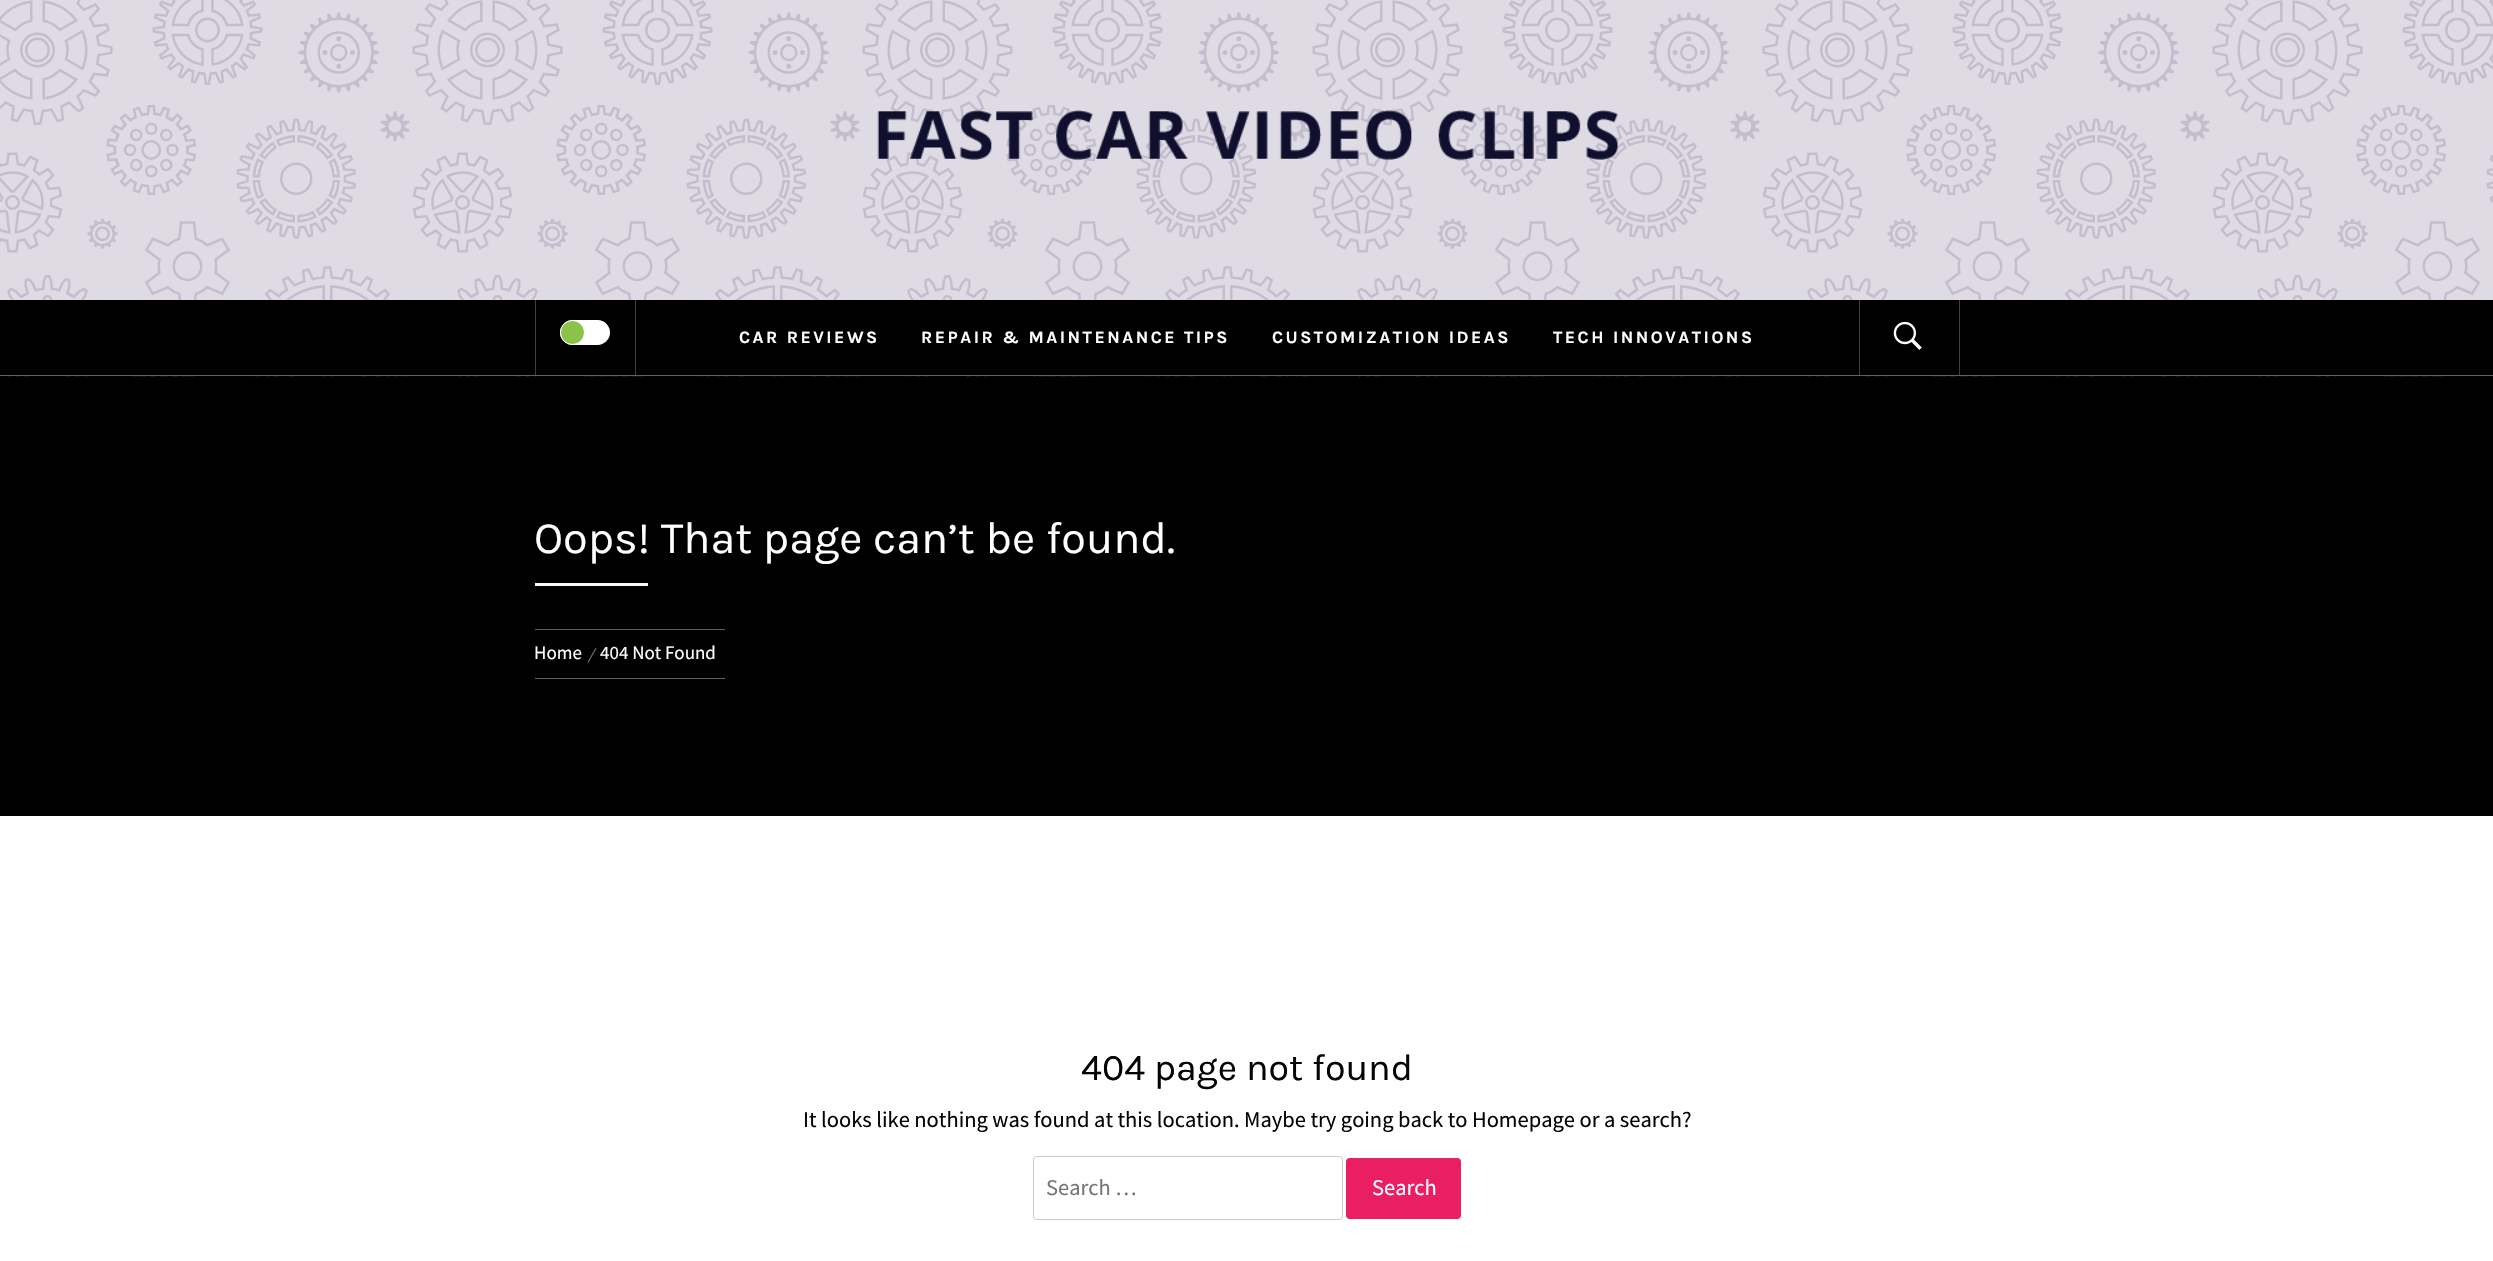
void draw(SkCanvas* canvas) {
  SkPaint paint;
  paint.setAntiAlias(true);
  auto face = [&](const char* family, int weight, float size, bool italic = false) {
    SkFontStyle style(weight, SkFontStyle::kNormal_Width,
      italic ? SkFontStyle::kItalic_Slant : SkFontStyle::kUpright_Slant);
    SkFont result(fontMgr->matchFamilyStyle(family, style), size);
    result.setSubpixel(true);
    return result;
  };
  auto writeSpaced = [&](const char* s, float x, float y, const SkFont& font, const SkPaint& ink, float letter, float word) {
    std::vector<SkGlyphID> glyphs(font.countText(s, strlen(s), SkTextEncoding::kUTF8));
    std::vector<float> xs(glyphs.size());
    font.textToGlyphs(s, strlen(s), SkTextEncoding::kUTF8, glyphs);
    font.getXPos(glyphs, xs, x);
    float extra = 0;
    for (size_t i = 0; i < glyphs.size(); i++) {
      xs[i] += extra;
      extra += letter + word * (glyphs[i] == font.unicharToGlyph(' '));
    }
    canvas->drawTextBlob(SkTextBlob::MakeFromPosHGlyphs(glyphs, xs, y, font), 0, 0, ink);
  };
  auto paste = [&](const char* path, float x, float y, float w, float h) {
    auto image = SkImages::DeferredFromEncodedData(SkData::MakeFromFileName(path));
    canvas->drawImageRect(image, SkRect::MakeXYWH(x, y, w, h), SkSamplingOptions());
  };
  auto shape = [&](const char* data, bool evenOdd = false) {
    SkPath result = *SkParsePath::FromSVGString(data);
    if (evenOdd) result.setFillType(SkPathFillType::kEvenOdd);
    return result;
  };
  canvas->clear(0xffffffff);
  paint.setColor(0xffdfdbe5);
  canvas->drawRect(SkRect::MakeXYWH(0, 0, 2493, 300), paint);
  paint.setColor(0xff000000);
  canvas->drawRect(SkRect::MakeXYWH(0, 376, 2493, 440), paint);
  paste("img/1.png", 0, 0, 2493, 377);
  paste("img/2.png", 877, 110, 741, 50);
  {
    const struct { float x, y, w, h; SkColor color; } items[] = {
      {0, 300, 2493, 75, 0xff000000},
      {0, 375, 2493, 1, 0xff616161},
      {1959, 300, 1, 75, 0xff404040},
      {535, 300, 1, 75, 0xff404040},
      {635, 300, 1, 75, 0xff404040},
    };
    for (auto [x, y, w, h, color] : items) {
      paint.setColor(color);
      canvas->drawRect(SkRect::MakeXYWH(x, y, w, h), paint);
    }
  }
  paint.setColor(0xffffffff);
  canvas->drawRoundRect(SkRect::MakeXYWH(560, 320, 50, 25), 12.5f, 12.5f, paint);
  paint.setColor(0xff8bc34a);
  canvas->drawCircle(572.5f, 332.5f, 12, paint);
  paint.setStroke(true);
  paint.setStrokeWidth(1);
  paint.setColor(0xffffffff);
  canvas->drawCircle(572.5f, 332.5f, 12, paint);
  paint.setStroke(false);
  paint.setColor(0xff404040);
  canvas->drawRect(SkRect::MakeXYWH(1859, 300, 1, 75), paint);
  paste("img/3.png", 1893, 321, 29, 29);
  {
    const struct { float x, y, w, h; SkColor color; } items[] = {
      {535, 583, 113, 3, 0xfff9f9fb},
      {535, 629, 190, 1, 0xff616161},
      {535, 678, 190, 1, 0xff616161},
    };
    for (auto [x, y, w, h, color] : items) {
      paint.setColor(color);
      canvas->drawRect(SkRect::MakeXYWH(x, y, w, h), paint);
    }
  }
  paint.setColor(0xff737373);
  canvas->drawPath(shape("M595.5 648L596.5 648.5L588.5 662.5L587.5 662Z"), paint);
  paint.setStroke(true);
  paint.setColor(0xffcccccc);
  canvas->drawRoundRect(SkRect::MakeXYWH(1033.5f, 1156.5f, 309, 63), 3.5f, 3.5f, paint);
  paint.setStroke(false);
  paint.setColor(0xffe91e63);
  canvas->drawRoundRect(SkRect::MakeXYWH(1346, 1158, 115, 61), 4, 4, paint);
  auto f0 = face("Karla", 700, 17.5f);
  paint.setColor(0xffffffff);
  {
    const struct { const char* s; float x, y; } items[] = {
      {"CAR REVIEWS", 739, 343},
      {"REPAIR & MAINTENANCE TIPS", 921, 343},
      {"CUSTOMIZATION IDEAS", 1272, 343},
      {"TECH INNOVATIONS", 1553, 343},
    };
    for (auto [s, x, y] : items) {
      writeSpaced(s, x, y, f0, paint, 2.5f, 0);
    }
  }
  auto f1 = face("Karla", 400, 45);
  canvas->drawString("Oops! That page can’t be found.", 534, 553, f1, paint);
  auto f2 = face("Source Sans Pro", 400, 19);
  canvas->drawString("Home", 534, 659, f2, paint);
  canvas->drawString("404 Not Found", 600, 659, f2, paint);
  auto f3 = face("Karla", 400, 37.5f);
  paint.setColor(0xff040404);
  canvas->drawString("404 page not found", 1081, 1080, f3, paint);
  auto f4 = face("Source Sans Pro", 400, 22.5f);
  canvas->drawString("It looks like nothing was found at this location. Maybe try going back to Homepage or a search?", 803, 1127, f4, paint);
  paint.setColor(0xff757575);
  canvas->drawString("Search …", 1046, 1195, f4, paint);
  paint.setColor(0xffffffff);
  canvas->drawString("Search", 1372, 1195, f4, paint);
}
